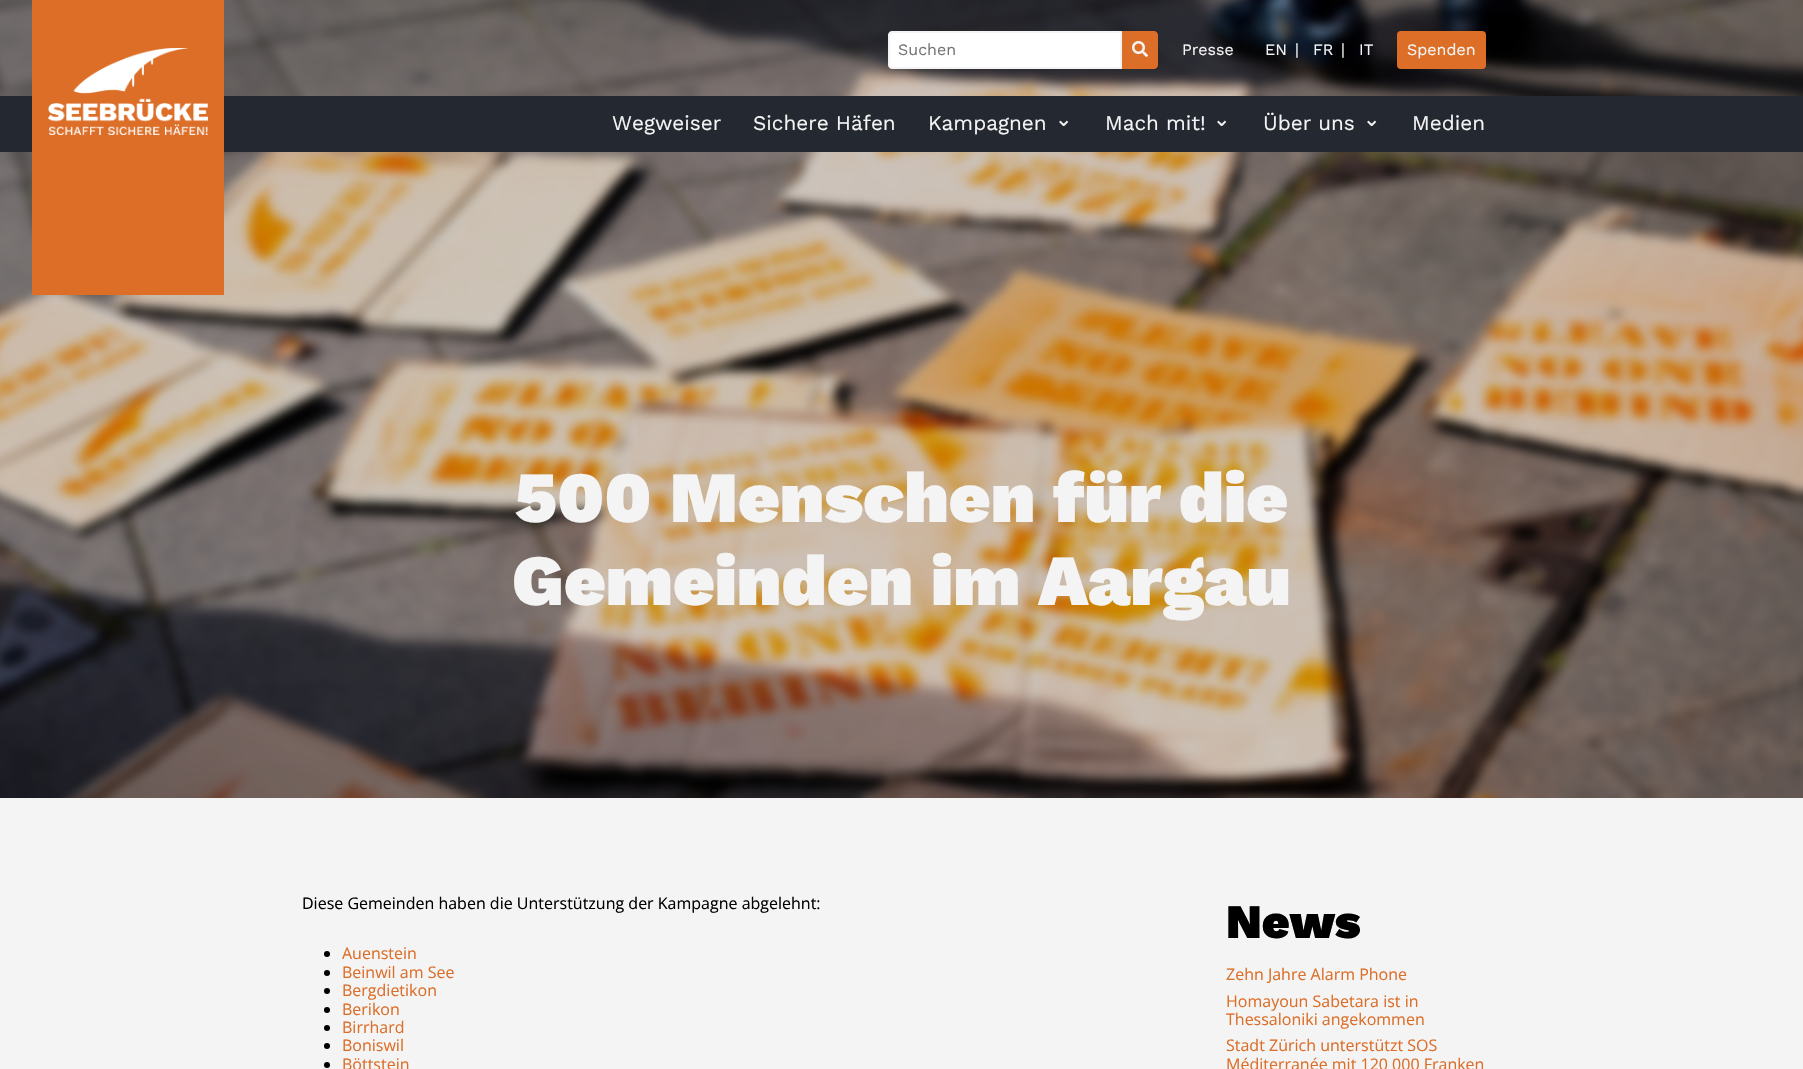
void draw(SkCanvas* canvas) {
  SkPaint paint;
  paint.setAntiAlias(true);
  auto face = [&](const char* family, int weight, float size, bool italic = false) {
    SkFontStyle style(weight, SkFontStyle::kNormal_Width,
      italic ? SkFontStyle::kItalic_Slant : SkFontStyle::kUpright_Slant);
    SkFont result(fontMgr->matchFamilyStyle(family, style), size);
    result.setSubpixel(true);
    return result;
  };
  auto paste = [&](const char* path, float x, float y, float w, float h) {
    auto image = SkImages::DeferredFromEncodedData(SkData::MakeFromFileName(path));
    canvas->drawImageRect(image, SkRect::MakeXYWH(x, y, w, h), SkSamplingOptions());
  };
  auto shape = [&](const char* data, bool evenOdd = false) {
    SkPath result = *SkParsePath::FromSVGString(data);
    if (evenOdd) result.setFillType(SkPathFillType::kEvenOdd);
    return result;
  };
  canvas->clear(0xfff4f4f4);
  paste("img/3.png", 0, 0, 1803, 798);
  paint.setColor(0xff242830);
  canvas->drawRect(SkRect::MakeXYWH(0, 96, 1803, 56), paint);
  paint.setColor(0xffdc6e28);
  canvas->drawRect(SkRect::MakeXYWH(32, 0, 192, 295), paint);
  paste("img/1.png", 48, 48, 160, 87);
  paint.setColor(0xffffffff);
  canvas->drawPath(shape("M892 32H1121V68H892C890.5 68 889 66.5 889 65V35C889 33.5 890.5 32 892 32Z"), paint);
  paint.setStroke(true);
  paint.setStrokeWidth(2);
  paint.setColor(0xfff4f4f4);
  canvas->drawPath(shape("M892 32H1121V68H892C890.5 68 889 66.5 889 65V35C889 33.5 890.5 32 892 32Z"), paint);
  paint.setStroke(false);
  paint.setColor(0xffdc6e28);
  canvas->drawPath(shape("M1123 32H1154C1155.5 32 1157 33.5 1157 35V65C1157 66.5 1155.5 68 1154 68H1123Z"), paint);
  paint.setStroke(true);
  canvas->drawPath(shape("M1123 32H1154C1155.5 32 1157 33.5 1157 35V65C1157 66.5 1155.5 68 1154 68H1123Z"), paint);
  paste("img/2.png", 1132, 41, 16, 16);
  paint.setStroke(false);
  canvas->drawRoundRect(SkRect::MakeXYWH(1398, 32, 87, 36), 3, 3, paint);
  paint.setStroke(true);
  canvas->drawRoundRect(SkRect::MakeXYWH(1398, 32, 87, 36), 3, 3, paint);
  paint.setStroke(false);
  paint.setColor(0xff000000);
  canvas->drawCircle(327, 954, 3, paint);
  canvas->drawCircle(327, 973, 3, paint);
  canvas->drawCircle(327, 991, 3, paint);
  canvas->drawCircle(327, 1010, 3, paint);
  canvas->drawCircle(327, 1028, 3, paint);
  canvas->drawCircle(327, 1046, 3, paint);
  canvas->drawCircle(327, 1065, 3, paint);
  auto f0 = face("Work Sans", 400, 16);
  paint.setColor(0xff757575);
  canvas->drawString("Suchen", 898, 55, f0, paint);
  paint.setColor(0xfff4f4f4);
  {
    const struct { const char* s; float x, y; } items[] = {
      {"Presse", 1182, 55},
      {"EN", 1265, 55},
      {"|", 1295, 55},
      {"FR", 1313, 55},
      {"|", 1341, 55},
      {"IT", 1359, 55},
      {"Spenden", 1407, 55},
    };
    for (auto [s, x, y] : items) {
      canvas->drawString(s, x, y, f0, paint);
    }
  }
  auto f1 = face("Work Sans", 400, 20.75f);
  {
    const struct { const char* s; float x, y; } items[] = {
      {"Wegweiser", 612, 130},
      {"Sichere Häfen", 753, 130},
      {"Kampagnen", 928, 130},
    };
    for (auto [s, x, y] : items) {
      canvas->drawString(s, x, y, f1, paint);
    }
  }
  auto f2 = face("DejaVu Sans", 400, 20.75f);
  canvas->drawString("⌄", 1055, 126, f2, paint);
  canvas->drawString("Mach mit!", 1105, 130, f1, paint);
  canvas->drawString("⌄", 1213, 126, f2, paint);
  canvas->drawString("Über uns", 1263, 130, f1, paint);
  canvas->drawString("⌄", 1363, 126, f2, paint);
  canvas->drawString("Medien", 1412, 130, f1, paint);
  auto f3 = face("Work Sans", 900, 72);
  canvas->drawString("500 Menschen für die", 515, 522, f3, paint);
  canvas->drawString("Gemeinden im Aargau", 512, 605, f3, paint);
  auto f4 = face("Open Sans", 400, 16);
  paint.setColor(0xff000000);
  canvas->drawString("Diese Gemeinden haben die Unterstützung der Kampagne abgelehnt:", 302, 909, f4, paint);
  paint.setColor(0xffdc6e28);
  {
    const struct { const char* s; float x, y; } items[] = {
      {"Auenstein", 342, 959},
      {"Beinwil am See", 342, 978},
      {"Bergdietikon", 342, 996},
      {"Berikon", 342, 1015},
      {"Birrhard", 342, 1033},
      {"Boniswil", 342, 1051},
      {"Böttstein", 342, 1070},
    };
    for (auto [s, x, y] : items) {
      canvas->drawString(s, x, y, f4, paint);
    }
  }
  auto f5 = face("Work Sans", 900, 48);
  paint.setColor(0xff000000);
  canvas->drawString("News", 1226, 938, f5, paint);
  paint.setColor(0xffdc6e28);
  {
    const struct { const char* s; float x, y; } items[] = {
      {"Zehn Jahre Alarm Phone", 1226, 980},
      {"Homayoun Sabetara ist in", 1226, 1007},
      {"Thessaloniki angekommen", 1226, 1025},
      {"Stadt Zürich unterstützt SOS", 1226, 1051},
      {"Méditerranée mit 120 000 Franken", 1226, 1070},
    };
    for (auto [s, x, y] : items) {
      canvas->drawString(s, x, y, f4, paint);
    }
  }
}
